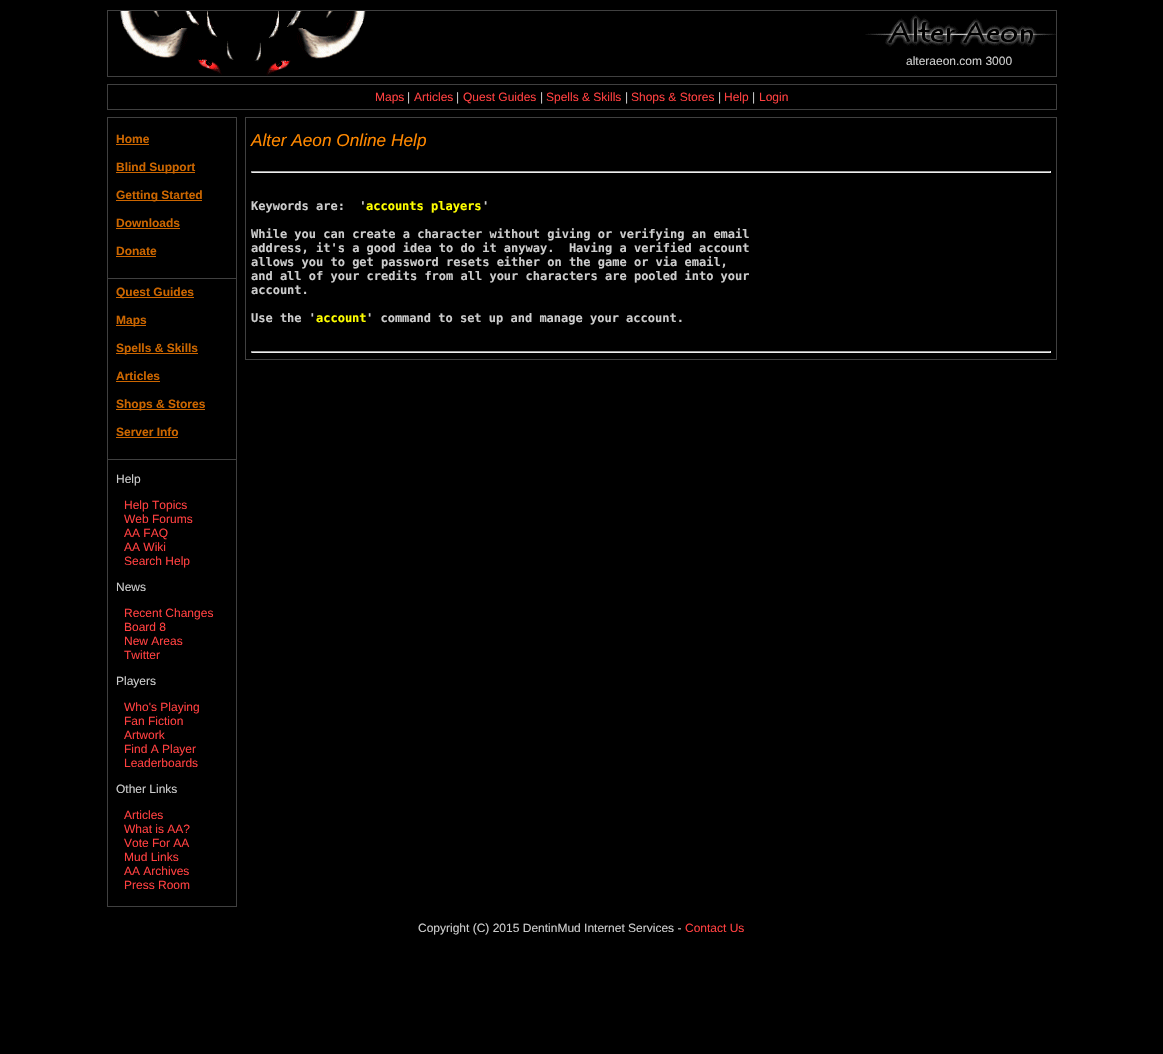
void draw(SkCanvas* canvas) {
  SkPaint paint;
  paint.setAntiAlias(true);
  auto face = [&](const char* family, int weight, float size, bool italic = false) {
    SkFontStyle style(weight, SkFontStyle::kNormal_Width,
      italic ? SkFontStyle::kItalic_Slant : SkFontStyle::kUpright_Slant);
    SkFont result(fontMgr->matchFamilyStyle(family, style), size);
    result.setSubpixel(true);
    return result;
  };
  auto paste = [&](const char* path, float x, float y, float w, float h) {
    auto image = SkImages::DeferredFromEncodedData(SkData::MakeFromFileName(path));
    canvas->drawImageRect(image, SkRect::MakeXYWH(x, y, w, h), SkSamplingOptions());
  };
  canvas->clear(0xff000000);
  paint.setStroke(true);
  paint.setStrokeWidth(1);
  paint.setColor(0xff404040);
  canvas->drawRect(SkRect::MakeXYWH(107.5f, 10.5f, 949, 66), paint);
  paste("img/1.png", 120, 11, 246, 65);
  paste("img/2.png", 865, 14, 191, 33);
  canvas->drawRect(SkRect::MakeXYWH(107.5f, 84.5f, 949, 25), paint);
  canvas->drawRect(SkRect::MakeXYWH(107.5f, 117.5f, 129, 789), paint);
  paint.setStroke(false);
  {
    const struct { float x, y, w, h; SkColor color; } items[] = {
      {116, 144, 33, 1, 0xffcc6600},
      {116, 172, 79, 1, 0xffcc6600},
      {116, 200, 86, 1, 0xffcc6600},
      {116, 228, 64, 1, 0xffcc6600},
      {116, 256, 40, 1, 0xffcc6600},
      {108, 278, 128, 1, 0xff404040},
      {116, 297, 78, 1, 0xffcc6600},
      {116, 325, 30, 1, 0xffcc6600},
      {116, 353, 82, 1, 0xffcc6600},
      {116, 381, 44, 1, 0xffcc6600},
      {116, 409, 89, 1, 0xffcc6600},
      {116, 437, 62, 1, 0xffcc6600},
      {108, 459, 128, 1, 0xff404040},
    };
    for (auto [x, y, w, h, color] : items) {
      paint.setColor(color);
      canvas->drawRect(SkRect::MakeXYWH(x, y, w, h), paint);
    }
  }
  paint.setStroke(true);
  canvas->drawRect(SkRect::MakeXYWH(245.5f, 117.5f, 811, 242), paint);
  paint.setStroke(false);
  {
    const struct { float x, y, w, h; SkColor color; } items[] = {
      {251, 171, 800, 1, 0xff9f9f9f},
      {1050, 171, 1, 2, 0xffeeeeee},
      {251, 172, 800, 1, 0xffeeeeee},
      {251, 171, 1, 2, 0xff9f9f9f},
      {251, 351, 800, 1, 0xff9f9f9f},
      {1050, 351, 1, 2, 0xffeeeeee},
      {251, 352, 800, 1, 0xffeeeeee},
      {251, 351, 1, 2, 0xff9f9f9f},
    };
    for (auto [x, y, w, h, color] : items) {
      paint.setColor(color);
      canvas->drawRect(SkRect::MakeXYWH(x, y, w, h), paint);
    }
  }
  auto f0 = face("Liberation Sans", 400, 12);
  paint.setColor(0xffcccccc);
  canvas->drawString("alteraeon.com 3000", 906, 65, f0, paint);
  paint.setColor(0xffff4040);
  canvas->drawString("Maps", 375, 101, f0, paint);
  paint.setColor(0xffcccccc);
  canvas->drawString("|", 407, 101, f0, paint);
  paint.setColor(0xffff4040);
  canvas->drawString("Articles", 414, 101, f0, paint);
  paint.setColor(0xffcccccc);
  canvas->drawString("|", 456, 101, f0, paint);
  paint.setColor(0xffff4040);
  canvas->drawString("Quest Guides", 463, 101, f0, paint);
  paint.setColor(0xffcccccc);
  canvas->drawString("|", 540, 101, f0, paint);
  paint.setColor(0xffff4040);
  canvas->drawString("Spells & Skills", 546, 101, f0, paint);
  paint.setColor(0xffcccccc);
  canvas->drawString("|", 625, 101, f0, paint);
  paint.setColor(0xffff4040);
  canvas->drawString("Shops & Stores", 631, 101, f0, paint);
  paint.setColor(0xffcccccc);
  canvas->drawString("|", 718, 101, f0, paint);
  paint.setColor(0xffff4040);
  canvas->drawString("Help", 724, 101, f0, paint);
  paint.setColor(0xffcccccc);
  canvas->drawString("|", 752, 101, f0, paint);
  paint.setColor(0xffff4040);
  canvas->drawString("Login", 759, 101, f0, paint);
  auto f1 = face("Liberation Sans", 700, 12);
  paint.setColor(0xffcc6600);
  {
    const struct { const char* s; float x, y; } items[] = {
      {"Home", 116, 143},
      {"Blind Support", 116, 171},
      {"Getting Started", 116, 199},
      {"Downloads", 116, 227},
      {"Donate", 116, 255},
      {"Quest Guides", 116, 296},
      {"Maps", 116, 324},
      {"Spells & Skills", 116, 352},
      {"Articles", 116, 380},
      {"Shops & Stores", 116, 408},
      {"Server Info", 116, 436},
    };
    for (auto [s, x, y] : items) {
      canvas->drawString(s, x, y, f1, paint);
    }
  }
  paint.setColor(0xffcccccc);
  canvas->drawString("Help", 116, 483, f0, paint);
  paint.setColor(0xffff4040);
  {
    const struct { const char* s; float x, y; } items[] = {
      {"Help Topics", 124, 509},
      {"Web Forums", 124, 523},
      {"AA FAQ", 124, 537},
      {"AA Wiki", 124, 551},
      {"Search Help", 124, 565},
    };
    for (auto [s, x, y] : items) {
      canvas->drawString(s, x, y, f0, paint);
    }
  }
  paint.setColor(0xffcccccc);
  canvas->drawString("News", 116, 591, f0, paint);
  paint.setColor(0xffff4040);
  {
    const struct { const char* s; float x, y; } items[] = {
      {"Recent Changes", 124, 617},
      {"Board 8", 124, 631},
      {"New Areas", 124, 645},
      {"Twitter", 124, 659},
    };
    for (auto [s, x, y] : items) {
      canvas->drawString(s, x, y, f0, paint);
    }
  }
  paint.setColor(0xffcccccc);
  canvas->drawString("Players", 116, 685, f0, paint);
  paint.setColor(0xffff4040);
  {
    const struct { const char* s; float x, y; } items[] = {
      {"Who's Playing", 124, 711},
      {"Fan Fiction", 124, 725},
      {"Artwork", 124, 739},
      {"Find A Player", 124, 753},
      {"Leaderboards", 124, 767},
    };
    for (auto [s, x, y] : items) {
      canvas->drawString(s, x, y, f0, paint);
    }
  }
  paint.setColor(0xffcccccc);
  canvas->drawString("Other Links", 116, 793, f0, paint);
  paint.setColor(0xffff4040);
  {
    const struct { const char* s; float x, y; } items[] = {
      {"Articles", 124, 819},
      {"What is AA?", 124, 833},
      {"Vote For AA", 124, 847},
      {"Mud Links", 124, 861},
      {"AA Archives", 124, 875},
      {"Press Room", 124, 889},
    };
    for (auto [s, x, y] : items) {
      canvas->drawString(s, x, y, f0, paint);
    }
  }
  auto f2 = face("Liberation Sans", 400, 17.25f, true);
  paint.setColor(0xffff8800);
  canvas->drawString("Alter Aeon Online Help", 251, 146, f2, paint);
  auto f3 = face("DejaVu Sans Mono", 700, 12);
  paint.setColor(0xffcccccc);
  canvas->drawString("Keywords are:  '", 251, 210, f3, paint);
  paint.setColor(0xffffff00);
  canvas->drawString("accounts players", 366, 210, f3, paint);
  paint.setColor(0xffcccccc);
  {
    const struct { const char* s; float x, y; } items[] = {
      {"'", 482, 210},
      {"While you can create a character without giving or verifying an email", 251, 238},
      {"address, it's a good idea to do it anyway.  Having a verified account", 251, 252},
      {"allows you to get password resets either on the game or via email,", 251, 266},
      {"and all of your credits from all your characters are pooled into your", 251, 280},
      {"account.", 251, 294},
      {"Use the '", 251, 322},
    };
    for (auto [s, x, y] : items) {
      canvas->drawString(s, x, y, f3, paint);
    }
  }
  paint.setColor(0xffffff00);
  canvas->drawString("account", 316, 322, f3, paint);
  paint.setColor(0xffcccccc);
  canvas->drawString("' command to set up and manage your account.", 366, 322, f3, paint);
  canvas->drawString("Copyright (C) 2015 DentinMud Internet Services -", 418, 932, f0, paint);
  paint.setColor(0xffff4040);
  canvas->drawString("Contact Us", 685, 932, f0, paint);
}
